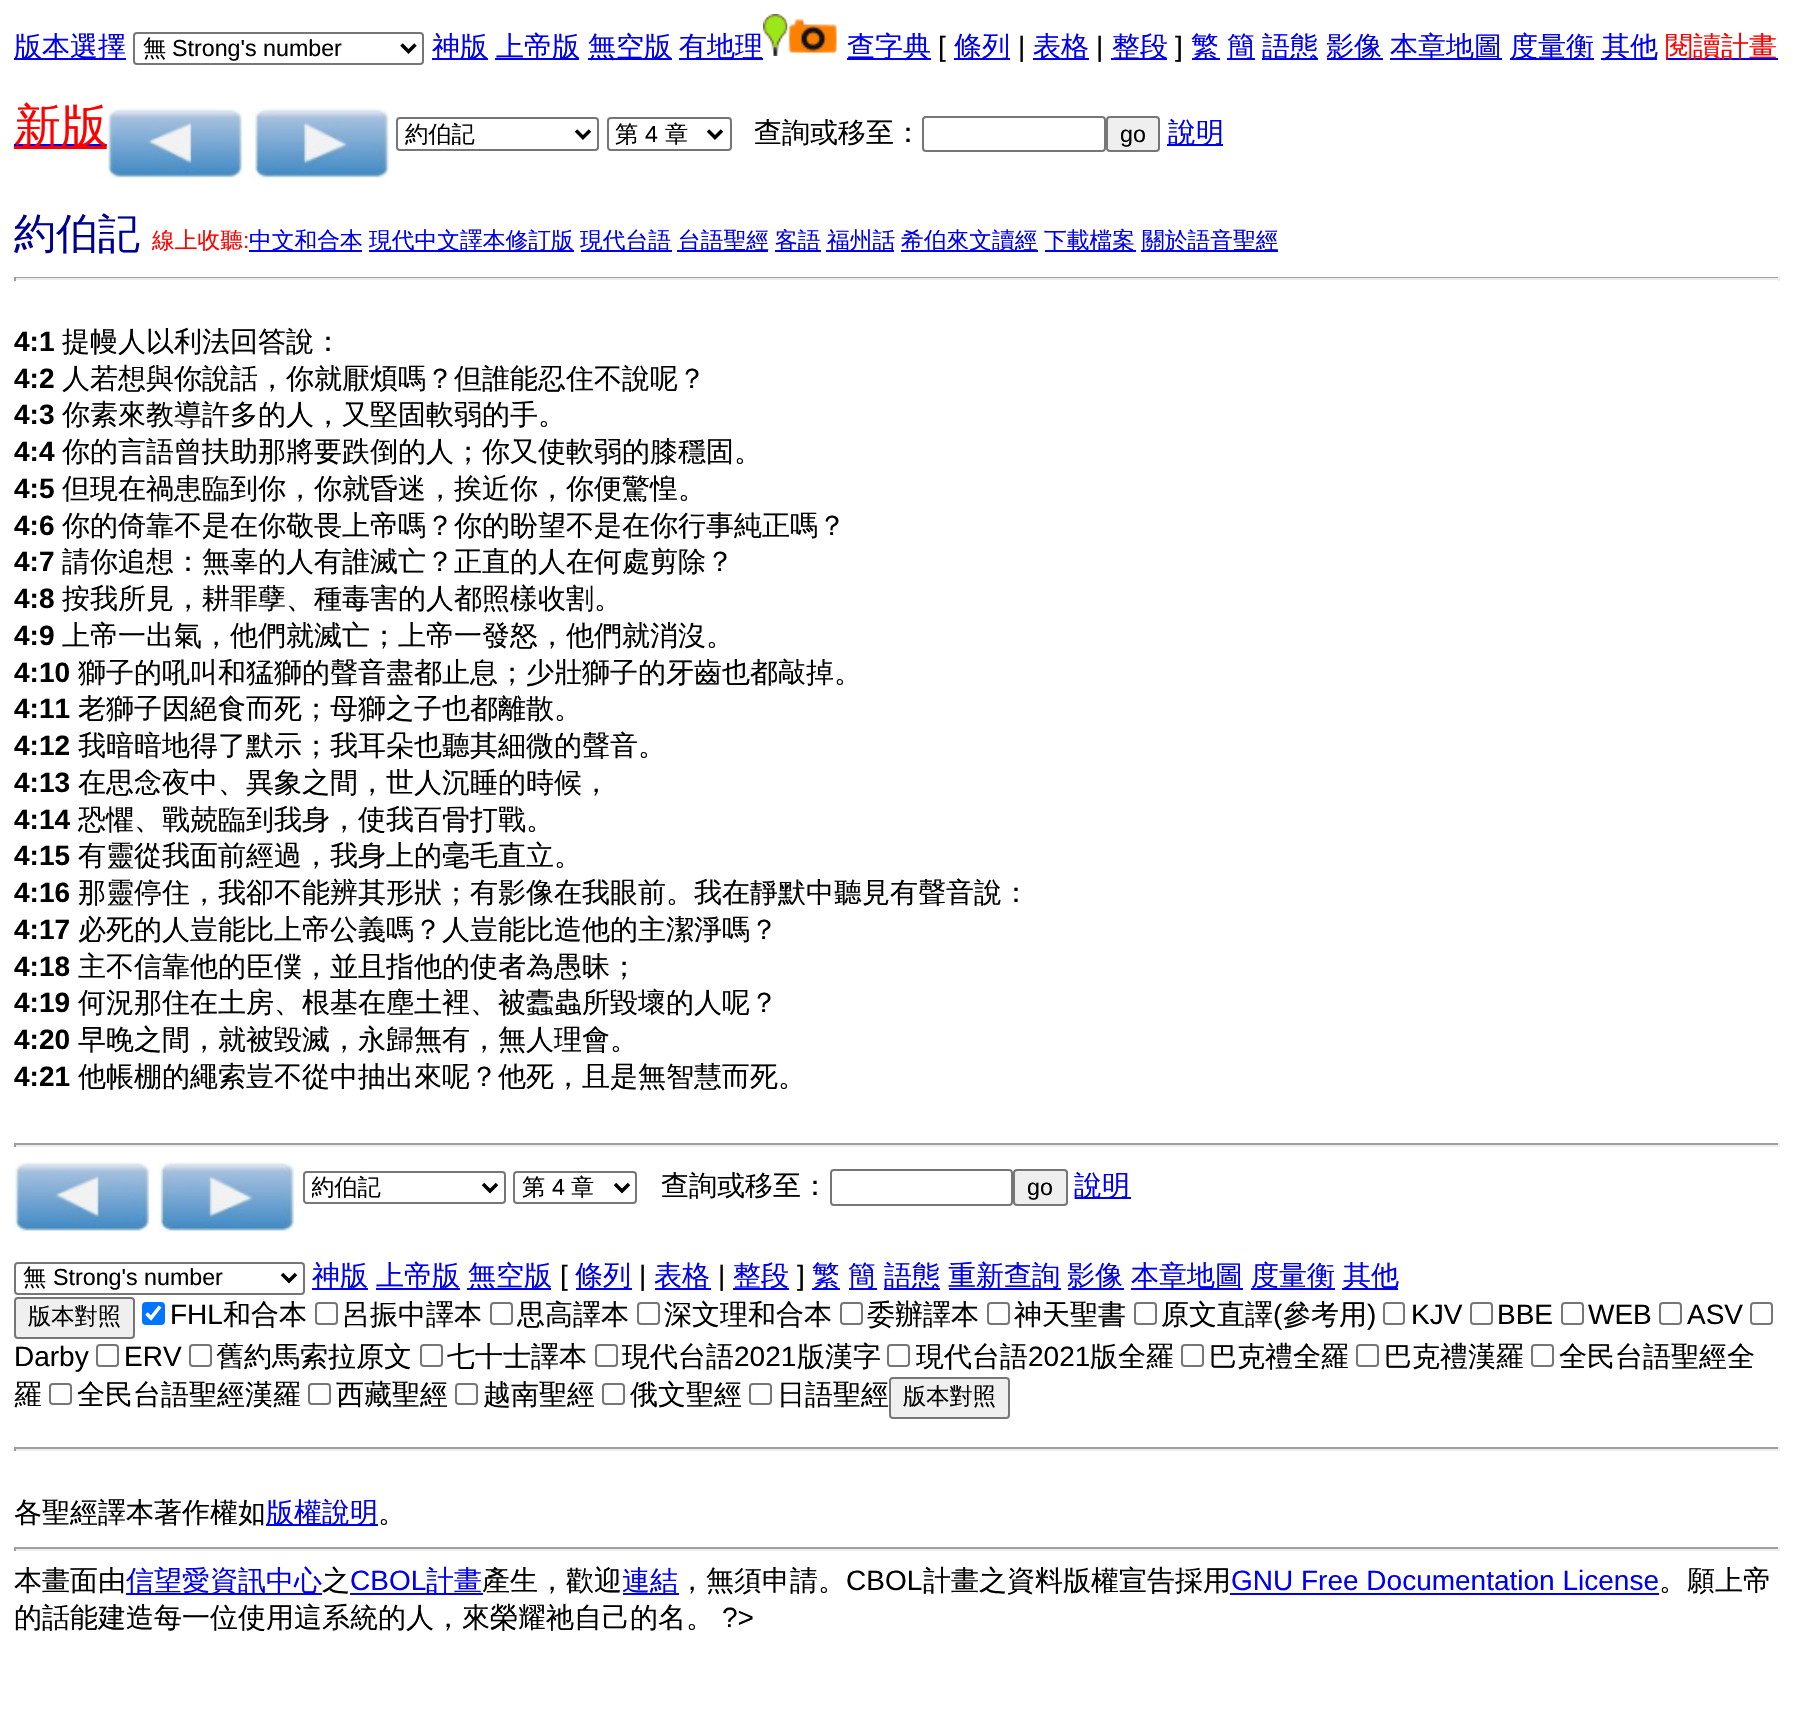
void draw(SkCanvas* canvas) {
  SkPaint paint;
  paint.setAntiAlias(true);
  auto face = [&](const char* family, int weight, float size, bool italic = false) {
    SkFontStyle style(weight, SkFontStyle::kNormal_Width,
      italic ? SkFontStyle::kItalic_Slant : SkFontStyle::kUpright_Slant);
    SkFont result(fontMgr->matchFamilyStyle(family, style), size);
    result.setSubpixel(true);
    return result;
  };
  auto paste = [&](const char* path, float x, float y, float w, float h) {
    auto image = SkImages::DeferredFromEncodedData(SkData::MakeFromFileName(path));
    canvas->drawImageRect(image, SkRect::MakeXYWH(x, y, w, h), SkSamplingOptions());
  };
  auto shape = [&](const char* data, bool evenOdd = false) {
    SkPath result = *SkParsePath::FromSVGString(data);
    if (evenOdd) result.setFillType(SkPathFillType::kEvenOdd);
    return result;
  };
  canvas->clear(0xffffffff);
  paint.setColor(0xff0000ee);
  canvas->drawRect(SkRect::MakeXYWH(14, 58, 112, 2), paint);
  paint.setStroke(true);
  paint.setStrokeWidth(2);
  paint.setColor(0xff767676);
  canvas->drawRoundRect(SkRect::MakeXYWH(134, 33, 289, 31), 3, 3, paint);
  paint.setStrokeWidth(3.5f);
  paint.setColor(0xff000000);
  canvas->drawPath(shape("M401.5 44.5L408.5 51.5L415.5 44.5"), paint);
  paint.setStroke(false);
  {
    const struct { float x, y, w, h; SkColor color; } items[] = {
      {432, 58, 56, 2, 0xff0000ee},
      {495, 58, 84, 2, 0xff0000ee},
      {588, 58, 84, 2, 0xff0000ee},
      {679, 58, 84, 2, 0xff0000ee},
    };
    for (auto [x, y, w, h, color] : items) {
      paint.setColor(color);
      canvas->drawRect(SkRect::MakeXYWH(x, y, w, h), paint);
    }
  }
  paste("img/1.png", 763, 14, 25, 42);
  paste("img/2.png", 787, 18, 50, 37);
  {
    const struct { float x, y, w, h; SkColor color; } items[] = {
      {847, 58, 84, 2, 0xff0000ee},
      {954, 58, 56, 2, 0xff0000ee},
      {1033, 58, 56, 2, 0xff0000ee},
      {1111, 58, 56, 2, 0xff0000ee},
      {1192, 58, 28, 2, 0xff0000ee},
      {1227, 58, 28, 2, 0xff0000ee},
      {1262, 58, 56, 2, 0xff0000ee},
      {1327, 58, 56, 2, 0xff0000ee},
      {1390, 58, 112, 2, 0xff0000ee},
      {1510, 58, 84, 2, 0xff0000ee},
      {1601, 58, 56, 2, 0xff0000ee},
      {1666, 58, 112, 2, 0xff0000ee},
      {14, 146, 93, 3, 0xffff0000},
      {14, 144, 93, 2, 0xff0000ee},
    };
    for (auto [x, y, w, h, color] : items) {
      paint.setColor(color);
      canvas->drawRect(SkRect::MakeXYWH(x, y, w, h), paint);
    }
  }
  paste("img/3.png", 106, 108, 137, 71);
  paste("img/4.png", 252, 108, 137, 71);
  paint.setStroke(true);
  paint.setStrokeWidth(2);
  paint.setColor(0xff767676);
  canvas->drawRoundRect(SkRect::MakeXYWH(397, 118, 201, 32), 3, 3, paint);
  paint.setStrokeWidth(3.5f);
  paint.setColor(0xff000000);
  canvas->drawPath(shape("M576 130.5L583 137.5L590 130.5"), paint);
  paint.setStrokeWidth(2);
  paint.setColor(0xff767676);
  canvas->drawRoundRect(SkRect::MakeXYWH(608, 118, 123, 32), 3, 3, paint);
  paint.setStrokeWidth(3.5f);
  paint.setColor(0xff000000);
  canvas->drawPath(shape("M708 130.5L715 137.5L722 130.5"), paint);
  paint.setStrokeWidth(2);
  paint.setColor(0xff767676);
  canvas->drawRoundRect(SkRect::MakeXYWH(923, 117, 182, 34), 3, 3, paint);
  paint.setStroke(false);
  paint.setColor(0xffefefef);
  canvas->drawRoundRect(SkRect::MakeXYWH(1107, 117, 52, 34), 3, 3, paint);
  paint.setStroke(true);
  paint.setColor(0xff767676);
  canvas->drawRoundRect(SkRect::MakeXYWH(1107, 117, 52, 34), 3, 3, paint);
  paint.setStroke(false);
  {
    const struct { float x, y, w, h; SkColor color; } items[] = {
      {1167, 144, 56, 2, 0xff0000ee},
      {249, 250, 113, 2, 0xff0000ee},
      {369, 250, 205, 2, 0xff0000ee},
      {581, 250, 91, 2, 0xff0000ee},
      {677, 250, 91, 2, 0xff0000ee},
      {775, 250, 46, 2, 0xff0000ee},
      {826, 250, 68, 2, 0xff0000ee},
      {901, 250, 137, 2, 0xff0000ee},
      {1045, 250, 91, 2, 0xff0000ee},
      {1141, 250, 137, 2, 0xff0000ee},
      {14, 277, 1766, 1, 0xff9f9f9f},
      {1778, 277, 2, 4, 0xffeeeeee},
      {14, 278, 1766, 2, 0xffeeeeee},
      {14, 277, 2, 4, 0xff9f9f9f},
      {14, 1143, 1766, 2, 0xff9f9f9f},
      {1778, 1143, 2, 4, 0xffeeeeee},
      {14, 1145, 1766, 2, 0xffeeeeee},
      {14, 1143, 2, 4, 0xff9f9f9f},
    };
    for (auto [x, y, w, h, color] : items) {
      paint.setColor(color);
      canvas->drawRect(SkRect::MakeXYWH(x, y, w, h), paint);
    }
  }
  paste("img/5.png", 14, 1162, 137, 70);
  paste("img/6.png", 157, 1162, 137, 70);
  paint.setStroke(true);
  paint.setColor(0xff767676);
  canvas->drawRoundRect(SkRect::MakeXYWH(304, 1172, 201, 31), 3, 3, paint);
  paint.setStrokeWidth(3.5f);
  paint.setColor(0xff000000);
  canvas->drawPath(shape("M483 1184L490 1191L497 1184"), paint);
  paint.setStrokeWidth(2);
  paint.setColor(0xff767676);
  canvas->drawRoundRect(SkRect::MakeXYWH(514, 1172, 122, 31), 3, 3, paint);
  paint.setStrokeWidth(3.5f);
  paint.setColor(0xff000000);
  canvas->drawPath(shape("M615 1184L622 1191L629 1184"), paint);
  paint.setStrokeWidth(2);
  paint.setColor(0xff767676);
  canvas->drawRoundRect(SkRect::MakeXYWH(831, 1170, 181, 35), 3, 3, paint);
  paint.setStroke(false);
  paint.setColor(0xffefefef);
  canvas->drawRoundRect(SkRect::MakeXYWH(1014, 1170, 53, 35), 3, 3, paint);
  paint.setStroke(true);
  paint.setColor(0xff767676);
  canvas->drawRoundRect(SkRect::MakeXYWH(1014, 1170, 53, 35), 3, 3, paint);
  paint.setStroke(false);
  paint.setColor(0xff0000ee);
  canvas->drawRect(SkRect::MakeXYWH(1075, 1197, 56, 2), paint);
  paint.setStroke(true);
  paint.setColor(0xff767676);
  canvas->drawRoundRect(SkRect::MakeXYWH(15, 1263, 289, 31), 3, 3, paint);
  paint.setStrokeWidth(3.5f);
  paint.setColor(0xff000000);
  canvas->drawPath(shape("M282 1274L289 1281L296 1274"), paint);
  paint.setStroke(false);
  {
    const struct { float x, y, w, h; SkColor color; } items[] = {
      {312, 1288, 56, 2, 0xff0000ee},
      {376, 1288, 84, 2, 0xff0000ee},
      {467, 1288, 84, 2, 0xff0000ee},
      {576, 1288, 56, 2, 0xff0000ee},
      {655, 1288, 56, 2, 0xff0000ee},
      {733, 1288, 56, 2, 0xff0000ee},
      {812, 1288, 28, 2, 0xff0000ee},
      {849, 1288, 28, 2, 0xff0000ee},
      {884, 1288, 56, 2, 0xff0000ee},
      {949, 1288, 112, 2, 0xff0000ee},
      {1068, 1288, 56, 2, 0xff0000ee},
      {1131, 1288, 112, 2, 0xff0000ee},
      {1251, 1288, 84, 2, 0xff0000ee},
      {1342, 1288, 56, 2, 0xff0000ee},
    };
    for (auto [x, y, w, h, color] : items) {
      paint.setColor(color);
      canvas->drawRect(SkRect::MakeXYWH(x, y, w, h), paint);
    }
  }
  paint.setColor(0xffefefef);
  canvas->drawRoundRect(SkRect::MakeXYWH(15, 1298, 119, 40), 3, 3, paint);
  paint.setStroke(true);
  paint.setStrokeWidth(2);
  paint.setColor(0xff767676);
  canvas->drawRoundRect(SkRect::MakeXYWH(15, 1298, 119, 40), 3, 3, paint);
  paint.setStroke(false);
  paint.setColor(0xff0075ff);
  canvas->drawRoundRect(SkRect::MakeXYWH(142, 1302, 23, 23), 4, 4, paint);
  paint.setStroke(true);
  paint.setStrokeWidth(3.6f);
  paint.setColor(0xffffffff);
  canvas->drawPath(shape("M146.5 1313.5L151 1318L160 1306.5"), paint);
  paint.setStrokeWidth(2);
  paint.setColor(0xff767676);
  canvas->drawRoundRect(SkRect::MakeXYWH(316, 1303, 21, 21), 3, 3, paint);
  canvas->drawRoundRect(SkRect::MakeXYWH(491, 1303, 21, 21), 3, 3, paint);
  canvas->drawRoundRect(SkRect::MakeXYWH(638, 1303, 21, 21), 3, 3, paint);
  canvas->drawRoundRect(SkRect::MakeXYWH(841, 1303, 21, 21), 3, 3, paint);
  canvas->drawRoundRect(SkRect::MakeXYWH(988, 1303, 21, 21), 3, 3, paint);
  canvas->drawRoundRect(SkRect::MakeXYWH(1135, 1303, 21, 21), 3, 3, paint);
  canvas->drawRoundRect(SkRect::MakeXYWH(1384, 1303, 20, 21), 3, 3, paint);
  canvas->drawRoundRect(SkRect::MakeXYWH(1471, 1303, 21, 21), 3, 3, paint);
  canvas->drawRoundRect(SkRect::MakeXYWH(1562, 1303, 21, 21), 3, 3, paint);
  canvas->drawRoundRect(SkRect::MakeXYWH(1660, 1303, 21, 21), 3, 3, paint);
  canvas->drawRoundRect(SkRect::MakeXYWH(1751, 1303, 21, 21), 3, 3, paint);
  canvas->drawRoundRect(SkRect::MakeXYWH(97, 1345, 21, 21), 3, 3, paint);
  canvas->drawRoundRect(SkRect::MakeXYWH(190, 1345, 21, 21), 3, 3, paint);
  canvas->drawRoundRect(SkRect::MakeXYWH(421, 1345, 21, 21), 3, 3, paint);
  canvas->drawRoundRect(SkRect::MakeXYWH(596, 1345, 21, 21), 3, 3, paint);
  canvas->drawRoundRect(SkRect::MakeXYWH(888, 1345, 21, 21), 3, 3, paint);
  canvas->drawRoundRect(SkRect::MakeXYWH(1182, 1345, 21, 21), 3, 3, paint);
  canvas->drawRoundRect(SkRect::MakeXYWH(1357, 1345, 21, 21), 3, 3, paint);
  canvas->drawRoundRect(SkRect::MakeXYWH(1532, 1345, 21, 21), 3, 3, paint);
  canvas->drawRoundRect(SkRect::MakeXYWH(50, 1384, 21, 20), 3, 3, paint);
  canvas->drawRoundRect(SkRect::MakeXYWH(309, 1384, 21, 20), 3, 3, paint);
  canvas->drawRoundRect(SkRect::MakeXYWH(456, 1384, 21, 20), 3, 3, paint);
  canvas->drawRoundRect(SkRect::MakeXYWH(603, 1384, 21, 20), 3, 3, paint);
  canvas->drawRoundRect(SkRect::MakeXYWH(750, 1384, 21, 20), 3, 3, paint);
  paint.setStroke(false);
  paint.setColor(0xffefefef);
  canvas->drawRoundRect(SkRect::MakeXYWH(890, 1378, 119, 40), 3, 3, paint);
  paint.setStroke(true);
  paint.setColor(0xff767676);
  canvas->drawRoundRect(SkRect::MakeXYWH(890, 1378, 119, 40), 3, 3, paint);
  paint.setStroke(false);
  {
    const struct { float x, y, w, h; SkColor color; } items[] = {
      {14, 1447, 1766, 2, 0xff9f9f9f},
      {1778, 1447, 2, 4, 0xffeeeeee},
      {14, 1449, 1766, 2, 0xffeeeeee},
      {14, 1447, 2, 4, 0xff9f9f9f},
      {266, 1524, 112, 2, 0xff0000ee},
      {14, 1547, 1766, 2, 0xff9f9f9f},
      {1778, 1547, 2, 4, 0xffeeeeee},
      {14, 1549, 1766, 2, 0xffeeeeee},
      {14, 1547, 2, 4, 0xff9f9f9f},
      {126, 1593, 196, 2, 0xff0000ee},
      {350, 1593, 133, 2, 0xff0000ee},
      {623, 1593, 56, 2, 0xff0000ee},
      {1230, 1593, 429, 2, 0xff0000ee},
    };
    for (auto [x, y, w, h, color] : items) {
      paint.setColor(color);
      canvas->drawRect(SkRect::MakeXYWH(x, y, w, h), paint);
    }
  }
  auto f0 = face("WenQuanYi Zen Hei", 500, 28);
  canvas->drawString("版本選擇", 14, 56, f0, paint);
  auto f1 = face("WenQuanYi Zen Hei", 500, 23.25f);
  paint.setColor(0xff000000);
  canvas->drawString("無", 143, 56, f1, paint);
  auto f2 = face("Liberation Sans", 400, 23.25f);
  canvas->drawString("Strong's number", 172, 56, f2, paint);
  paint.setColor(0xff0000ee);
  {
    const struct { const char* s; float x, y; } items[] = {
      {"神版", 432, 56},
      {"上帝版", 496, 56},
      {"無空版", 588, 56},
      {"有地理", 679, 56},
      {"查字典", 847, 56},
    };
    for (auto [s, x, y] : items) {
      canvas->drawString(s, x, y, f0, paint);
    }
  }
  auto f3 = face("Liberation Sans", 400, 28);
  paint.setColor(0xff000000);
  canvas->drawString("[", 938, 56, f3, paint);
  paint.setColor(0xff0000ee);
  canvas->drawString("條列", 954, 56, f0, paint);
  paint.setColor(0xff000000);
  canvas->drawString("|", 1018, 56, f3, paint);
  paint.setColor(0xff0000ee);
  canvas->drawString("表格", 1033, 56, f0, paint);
  paint.setColor(0xff000000);
  canvas->drawString("|", 1096, 56, f3, paint);
  paint.setColor(0xff0000ee);
  canvas->drawString("整段", 1112, 56, f0, paint);
  paint.setColor(0xff000000);
  canvas->drawString("]", 1175, 56, f3, paint);
  paint.setColor(0xff0000ee);
  {
    const struct { const char* s; float x, y; } items[] = {
      {"繁", 1191, 56},
      {"簡", 1227, 56},
      {"語態", 1262, 56},
      {"影像", 1326, 56},
      {"本章地圖", 1390, 56},
      {"度量衡", 1510, 56},
      {"其他", 1602, 56},
    };
    for (auto [s, x, y] : items) {
      canvas->drawString(s, x, y, f0, paint);
    }
  }
  paint.setColor(0xffff0000);
  canvas->drawString("閱讀計畫", 1665, 56, f0, paint);
  auto f4 = face("WenQuanYi Zen Hei", 500, 47);
  canvas->drawString("新版", 14, 142, f4, paint);
  paint.setColor(0xff000000);
  canvas->drawString("約伯記", 405, 142, f1, paint);
  canvas->drawString("第", 615, 142, f1, paint);
  canvas->drawString("4", 645, 142, f2, paint);
  canvas->drawString("章", 665, 142, f1, paint);
  canvas->drawString("查詢或移至：", 754, 142, f0, paint);
  canvas->drawString("go", 1120, 142, f2, paint);
  paint.setColor(0xff0000ee);
  canvas->drawString("說明", 1168, 142, f0, paint);
  auto f5 = face("WenQuanYi Zen Hei", 500, 42);
  paint.setColor(0xff000090);
  canvas->drawString("約伯記", 14, 248, f5, paint);
  auto f6 = face("WenQuanYi Zen Hei", 500, 22.75f);
  paint.setColor(0xffff0000);
  canvas->drawString("線上收聽", 152, 248, f6, paint);
  auto f7 = face("Liberation Sans", 400, 22.75f);
  canvas->drawString(":", 243, 248, f7, paint);
  paint.setColor(0xff0000ee);
  {
    const struct { const char* s; float x, y; } items[] = {
      {"中文和合本", 249, 248},
      {"現代中文譯本修訂版", 369, 248},
      {"現代台語", 580, 248},
      {"台語聖經", 678, 248},
      {"客語", 775, 248},
      {"福州話", 827, 248},
      {"希伯來文讀經", 901, 248},
      {"下載檔案", 1044, 248},
      {"關於語音聖經", 1142, 248},
    };
    for (auto [s, x, y] : items) {
      canvas->drawString(s, x, y, f6, paint);
    }
  }
  auto f8 = face("Liberation Sans", 700, 28);
  paint.setColor(0xff000000);
  canvas->drawString("4:1", 14, 351, f8, paint);
  canvas->drawString("提幔人以利法回答說：", 62, 351, f0, paint);
  canvas->drawString("4:2", 14, 388, f8, paint);
  canvas->drawString("人若想與你說話，你就厭煩嗎？但誰能忍住不說呢？", 62, 388, f0, paint);
  canvas->drawString("4:3", 14, 424, f8, paint);
  canvas->drawString("你素來教導許多的人，又堅固軟弱的手。", 62, 424, f0, paint);
  canvas->drawString("4:4", 14, 461, f8, paint);
  canvas->drawString("你的言語曾扶助那將要跌倒的人；你又使軟弱的膝穩固。", 62, 461, f0, paint);
  canvas->drawString("4:5", 14, 498, f8, paint);
  canvas->drawString("但現在禍患臨到你，你就昏迷，挨近你，你便驚惶。", 62, 498, f0, paint);
  canvas->drawString("4:6", 14, 535, f8, paint);
  canvas->drawString("你的倚靠不是在你敬畏上帝嗎？你的盼望不是在你行事純正嗎？", 62, 535, f0, paint);
  canvas->drawString("4:7", 14, 571, f8, paint);
  canvas->drawString("請你追想：無辜的人有誰滅亡？正直的人在何處剪除？", 62, 571, f0, paint);
  canvas->drawString("4:8", 14, 608, f8, paint);
  canvas->drawString("按我所見，耕罪孽、種毒害的人都照樣收割。", 62, 608, f0, paint);
  canvas->drawString("4:9", 14, 645, f8, paint);
  canvas->drawString("上帝一出氣，他們就滅亡；上帝一發怒，他們就消沒。", 62, 645, f0, paint);
  canvas->drawString("4:10", 14, 682, f8, paint);
  canvas->drawString("獅子的吼叫和猛獅的聲音盡都止息；少壯獅子的牙齒也都敲掉。", 78, 682, f0, paint);
  canvas->drawString("4:11", 14, 718, f8, paint);
  canvas->drawString("老獅子因絕食而死；母獅之子也都離散。", 78, 718, f0, paint);
  canvas->drawString("4:12", 14, 755, f8, paint);
  canvas->drawString("我暗暗地得了默示；我耳朵也聽其細微的聲音。", 78, 755, f0, paint);
  canvas->drawString("4:13", 14, 792, f8, paint);
  canvas->drawString("在思念夜中、異象之間，世人沉睡的時候，", 78, 792, f0, paint);
  canvas->drawString("4:14", 14, 829, f8, paint);
  canvas->drawString("恐懼、戰兢臨到我身，使我百骨打戰。", 78, 829, f0, paint);
  canvas->drawString("4:15", 14, 865, f8, paint);
  canvas->drawString("有靈從我面前經過，我身上的毫毛直立。", 78, 865, f0, paint);
  canvas->drawString("4:16", 14, 902, f8, paint);
  canvas->drawString("那靈停住，我卻不能辨其形狀；有影像在我眼前。我在靜默中聽見有聲音說：", 78, 902, f0, paint);
  canvas->drawString("4:17", 14, 939, f8, paint);
  canvas->drawString("必死的人豈能比上帝公義嗎？人豈能比造他的主潔淨嗎？", 78, 939, f0, paint);
  canvas->drawString("4:18", 14, 976, f8, paint);
  canvas->drawString("主不信靠他的臣僕，並且指他的使者為愚昧；", 78, 976, f0, paint);
  canvas->drawString("4:19", 14, 1012, f8, paint);
  canvas->drawString("何況那住在土房、根基在塵土裡、被蠹蟲所毀壞的人呢？", 78, 1012, f0, paint);
  canvas->drawString("4:20", 14, 1049, f8, paint);
  canvas->drawString("早晚之間，就被毀滅，永歸無有，無人理會。", 78, 1049, f0, paint);
  canvas->drawString("4:21", 14, 1086, f8, paint);
  canvas->drawString("他帳棚的繩索豈不從中抽出來呢？他死，且是無智慧而死。", 78, 1086, f0, paint);
  canvas->save();
  canvas->clipRect(SkRect::MakeXYWH(312, 1173, 164, 29));
  canvas->drawString("約伯記", 311, 1195, f1, paint);
  canvas->restore();
  canvas->drawString("第", 522, 1195, f1, paint);
  canvas->drawString("4", 552, 1195, f2, paint);
  canvas->drawString("章", 571, 1195, f1, paint);
  canvas->drawString("查詢或移至：", 661, 1195, f0, paint);
  canvas->drawString("go", 1027, 1195, f2, paint);
  paint.setColor(0xff0000ee);
  canvas->drawString("說明", 1074, 1195, f0, paint);
  paint.setColor(0xff000000);
  canvas->drawString("無", 23, 1285, f1, paint);
  canvas->drawString("Strong's number", 53, 1285, f2, paint);
  paint.setColor(0xff0000ee);
  {
    const struct { const char* s; float x, y; } items[] = {
      {"神版", 312, 1285},
      {"上帝版", 376, 1285},
      {"無空版", 468, 1285},
    };
    for (auto [s, x, y] : items) {
      canvas->drawString(s, x, y, f0, paint);
    }
  }
  paint.setColor(0xff000000);
  canvas->drawString("[", 560, 1285, f3, paint);
  paint.setColor(0xff0000ee);
  canvas->drawString("條列", 575, 1285, f0, paint);
  paint.setColor(0xff000000);
  canvas->drawString("|", 639, 1285, f3, paint);
  paint.setColor(0xff0000ee);
  canvas->drawString("表格", 654, 1285, f0, paint);
  paint.setColor(0xff000000);
  canvas->drawString("|", 718, 1285, f3, paint);
  paint.setColor(0xff0000ee);
  canvas->drawString("整段", 733, 1285, f0, paint);
  paint.setColor(0xff000000);
  canvas->drawString("]", 797, 1285, f3, paint);
  paint.setColor(0xff0000ee);
  {
    const struct { const char* s; float x, y; } items[] = {
      {"繁", 812, 1285},
      {"簡", 848, 1285},
      {"語態", 884, 1285},
      {"重新查詢", 948, 1285},
      {"影像", 1067, 1285},
      {"本章地圖", 1131, 1285},
      {"度量衡", 1251, 1285},
      {"其他", 1343, 1285},
    };
    for (auto [s, x, y] : items) {
      canvas->drawString(s, x, y, f0, paint);
    }
  }
  paint.setColor(0xff000000);
  canvas->drawString("版本對照", 28, 1324, f1, paint);
  canvas->drawString("FHL", 170, 1324, f3, paint);
  {
    const struct { const char* s; float x, y; } items[] = {
      {"和合本", 223, 1324},
      {"呂振中譯本", 342, 1324},
      {"思高譯本", 517, 1324},
      {"深文理和合本", 664, 1324},
      {"委辦譯本", 867, 1324},
      {"神天聖書", 1014, 1324},
      {"原文直譯", 1161, 1324},
    };
    for (auto [s, x, y] : items) {
      canvas->drawString(s, x, y, f0, paint);
    }
  }
  canvas->drawString("(", 1273, 1324, f3, paint);
  canvas->drawString("參考用", 1283, 1324, f0, paint);
  {
    const struct { const char* s; float x, y; } items[] = {
      {")", 1367, 1324},
      {"KJV", 1411, 1324},
      {"BBE", 1497, 1324},
      {"WEB", 1588, 1324},
      {"ASV", 1687, 1324},
      {"Darby", 14, 1366},
      {"ERV", 124, 1366},
    };
    for (auto [s, x, y] : items) {
      canvas->drawString(s, x, y, f3, paint);
    }
  }
  {
    const struct { const char* s; float x, y; } items[] = {
      {"舊約馬索拉原文", 216, 1366},
      {"七十士譯本", 447, 1366},
      {"現代台語", 622, 1366},
    };
    for (auto [s, x, y] : items) {
      canvas->drawString(s, x, y, f0, paint);
    }
  }
  canvas->drawString("2021", 734, 1366, f3, paint);
  canvas->drawString("版漢字", 797, 1366, f0, paint);
  canvas->drawString("現代台語", 916, 1366, f0, paint);
  canvas->drawString("2021", 1028, 1366, f3, paint);
  {
    const struct { const char* s; float x, y; } items[] = {
      {"版全羅", 1090, 1366},
      {"巴克禮全羅", 1209, 1366},
      {"巴克禮漢羅", 1384, 1366},
      {"全民台語聖經全", 1559, 1366},
      {"羅", 14, 1404},
      {"全民台語聖經漢羅", 77, 1404},
      {"西藏聖經", 336, 1404},
      {"越南聖經", 483, 1404},
      {"俄文聖經", 630, 1404},
      {"日語聖經", 777, 1404},
    };
    for (auto [s, x, y] : items) {
      canvas->drawString(s, x, y, f0, paint);
    }
  }
  canvas->drawString("版本對照", 903, 1404, f1, paint);
  canvas->drawString("各聖經譯本著作權如", 14, 1522, f0, paint);
  paint.setColor(0xff0000ee);
  canvas->drawString("版權說明", 266, 1522, f0, paint);
  paint.setColor(0xff000000);
  canvas->drawString("。", 378, 1522, f0, paint);
  canvas->drawString("本畫面由", 14, 1590, f0, paint);
  paint.setColor(0xff0000ee);
  canvas->drawString("信望愛資訊中心", 126, 1590, f0, paint);
  paint.setColor(0xff000000);
  canvas->drawString("之", 322, 1590, f0, paint);
  paint.setColor(0xff0000ee);
  canvas->drawString("CBOL", 350, 1590, f3, paint);
  canvas->drawString("計畫", 426, 1590, f0, paint);
  paint.setColor(0xff000000);
  canvas->drawString("產生，歡迎", 482, 1590, f0, paint);
  paint.setColor(0xff0000ee);
  canvas->drawString("連結", 622, 1590, f0, paint);
  paint.setColor(0xff000000);
  canvas->drawString("，無須申請。", 678, 1590, f0, paint);
  canvas->drawString("CBOL", 846, 1590, f3, paint);
  canvas->drawString("計畫之資料版權宣告採用", 923, 1590, f0, paint);
  paint.setColor(0xff0000ee);
  canvas->drawString("GNU Free Documentation License", 1231, 1590, f3, paint);
  paint.setColor(0xff000000);
  canvas->drawString("。願上帝", 1659, 1590, f0, paint);
  canvas->drawString("的話能建造每一位使用這系統的人，來榮耀祂自己的名。", 14, 1627, f0, paint);
  canvas->drawString("?>", 722, 1627, f3, paint);
}
